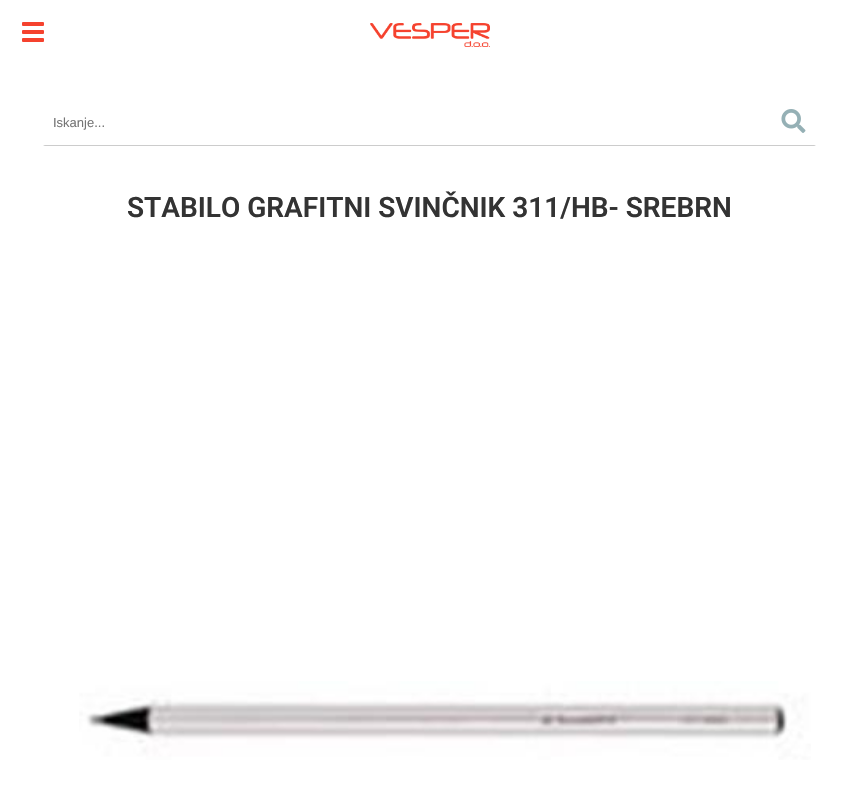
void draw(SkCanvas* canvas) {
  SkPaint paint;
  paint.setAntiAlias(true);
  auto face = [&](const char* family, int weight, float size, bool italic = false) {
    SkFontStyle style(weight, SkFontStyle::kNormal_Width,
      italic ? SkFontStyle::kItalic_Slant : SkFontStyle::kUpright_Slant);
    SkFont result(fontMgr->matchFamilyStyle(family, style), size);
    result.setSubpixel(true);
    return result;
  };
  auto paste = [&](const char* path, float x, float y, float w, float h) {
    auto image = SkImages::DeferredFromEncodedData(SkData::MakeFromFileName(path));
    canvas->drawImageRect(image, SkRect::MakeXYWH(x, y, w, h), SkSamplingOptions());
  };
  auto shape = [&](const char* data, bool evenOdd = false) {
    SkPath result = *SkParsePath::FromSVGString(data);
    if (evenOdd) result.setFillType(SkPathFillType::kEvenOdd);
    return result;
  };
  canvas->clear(0xffffffff);
  paint.setColor(0xfff5422e);
  canvas->drawRoundRect(SkRect::MakeXYWH(22, 22, 22, 4), 1, 1, paint);
  canvas->drawRoundRect(SkRect::MakeXYWH(22, 30, 22, 4), 1, 1, paint);
  canvas->drawRoundRect(SkRect::MakeXYWH(22, 38, 22, 4), 1, 1, paint);
  paste("img/1.png", 370, 23, 120, 24);
  canvas->save();
  canvas->clipPath(shape("M45 100H814C815 100 816 101 816 102V144C816 145 815 146 814 146H45C44 146 43 145 43 144V102C43 101 44 100 45 100Z"), true);
  paint.setColor(0xffcccccc);
  canvas->drawRect(SkRect::MakeXYWH(43, 145, 773, 1), paint);
  canvas->restore();
  paste("img/2.png", 781, 109, 25, 24);
  paste("img/3.png", 79, 681, 732, 79);
  auto f0 = face("Liberation Sans", 400, 13);
  paint.setColor(0xff757575);
  canvas->drawString("Iskanje...", 53, 127, f0, paint);
  auto f1 = face("Roboto", 600, 28);
  paint.setColor(0xff333333);
  canvas->drawString("STABILO GRAFITNI SVINČNIK 311/HB- SREBRN", 127, 217, f1, paint);
}
